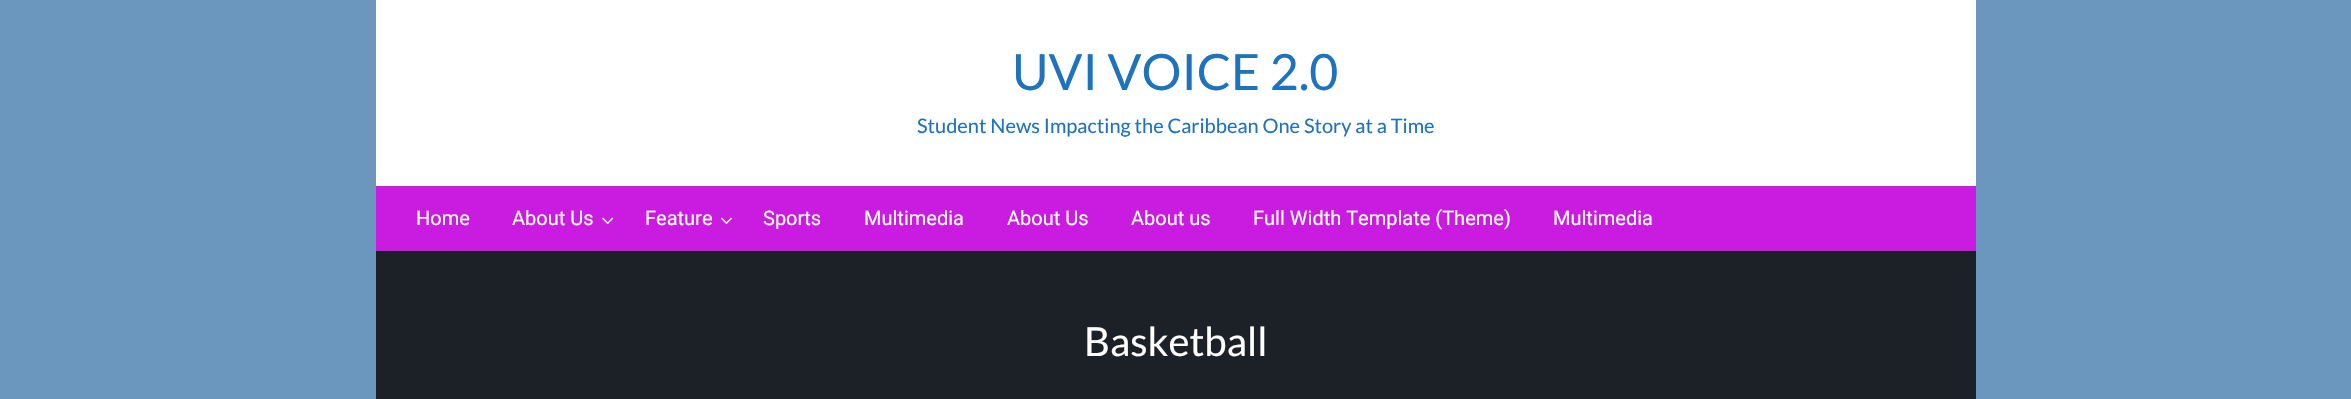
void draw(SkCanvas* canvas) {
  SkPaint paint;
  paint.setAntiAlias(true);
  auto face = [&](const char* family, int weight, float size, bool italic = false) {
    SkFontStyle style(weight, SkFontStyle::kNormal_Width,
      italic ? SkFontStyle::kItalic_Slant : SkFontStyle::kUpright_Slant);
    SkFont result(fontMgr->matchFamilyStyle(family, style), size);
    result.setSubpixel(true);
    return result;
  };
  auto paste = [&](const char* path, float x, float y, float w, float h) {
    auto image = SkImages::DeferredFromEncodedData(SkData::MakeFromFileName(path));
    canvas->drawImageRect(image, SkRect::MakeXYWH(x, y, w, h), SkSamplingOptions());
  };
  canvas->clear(0xff6b97bf);
  paint.setColor(0xffffffff);
  canvas->drawRect(SkRect::MakeXYWH(376, 0, 1600, 186), paint);
  paint.setColor(0xdbd707e5);
  canvas->drawRect(SkRect::MakeXYWH(376, 186, 1600, 65), paint);
  paste("img/1.png", 602, 217, 12, 8);
  paste("img/2.png", 720, 217, 12, 8);
  paint.setColor(0xff1c2127);
  canvas->drawRect(SkRect::MakeXYWH(376, 251, 1600, 148), paint);
  auto f0 = face("Lato", 400, 50);
  paint.setColor(0xff1e73be);
  canvas->drawString("UVI VOICE 2.0", 1012, 90, f0, paint);
  auto f1 = face("Lato", 400, 20);
  canvas->drawString("Student News Impacting the Caribbean One Story at a Time", 917, 133, f1, paint);
  auto f2 = face("Roboto", 400, 20);
  paint.setColor(0xffffffff);
  {
    const struct { const char* s; float x, y; } items[] = {
      {"Home", 416, 225},
      {"About Us", 512, 225},
      {"Feature", 645, 225},
      {"Sports", 763, 225},
      {"Multimedia", 864, 225},
      {"About Us", 1007, 225},
      {"About us", 1131, 225},
      {"Full Width Template (Theme)", 1253, 225},
      {"Multimedia", 1553, 225},
    };
    for (auto [s, x, y] : items) {
      canvas->drawString(s, x, y, f2, paint);
    }
  }
  auto f3 = face("Lato", 400, 40);
  canvas->drawString("Basketball", 1084, 356, f3, paint);
}
